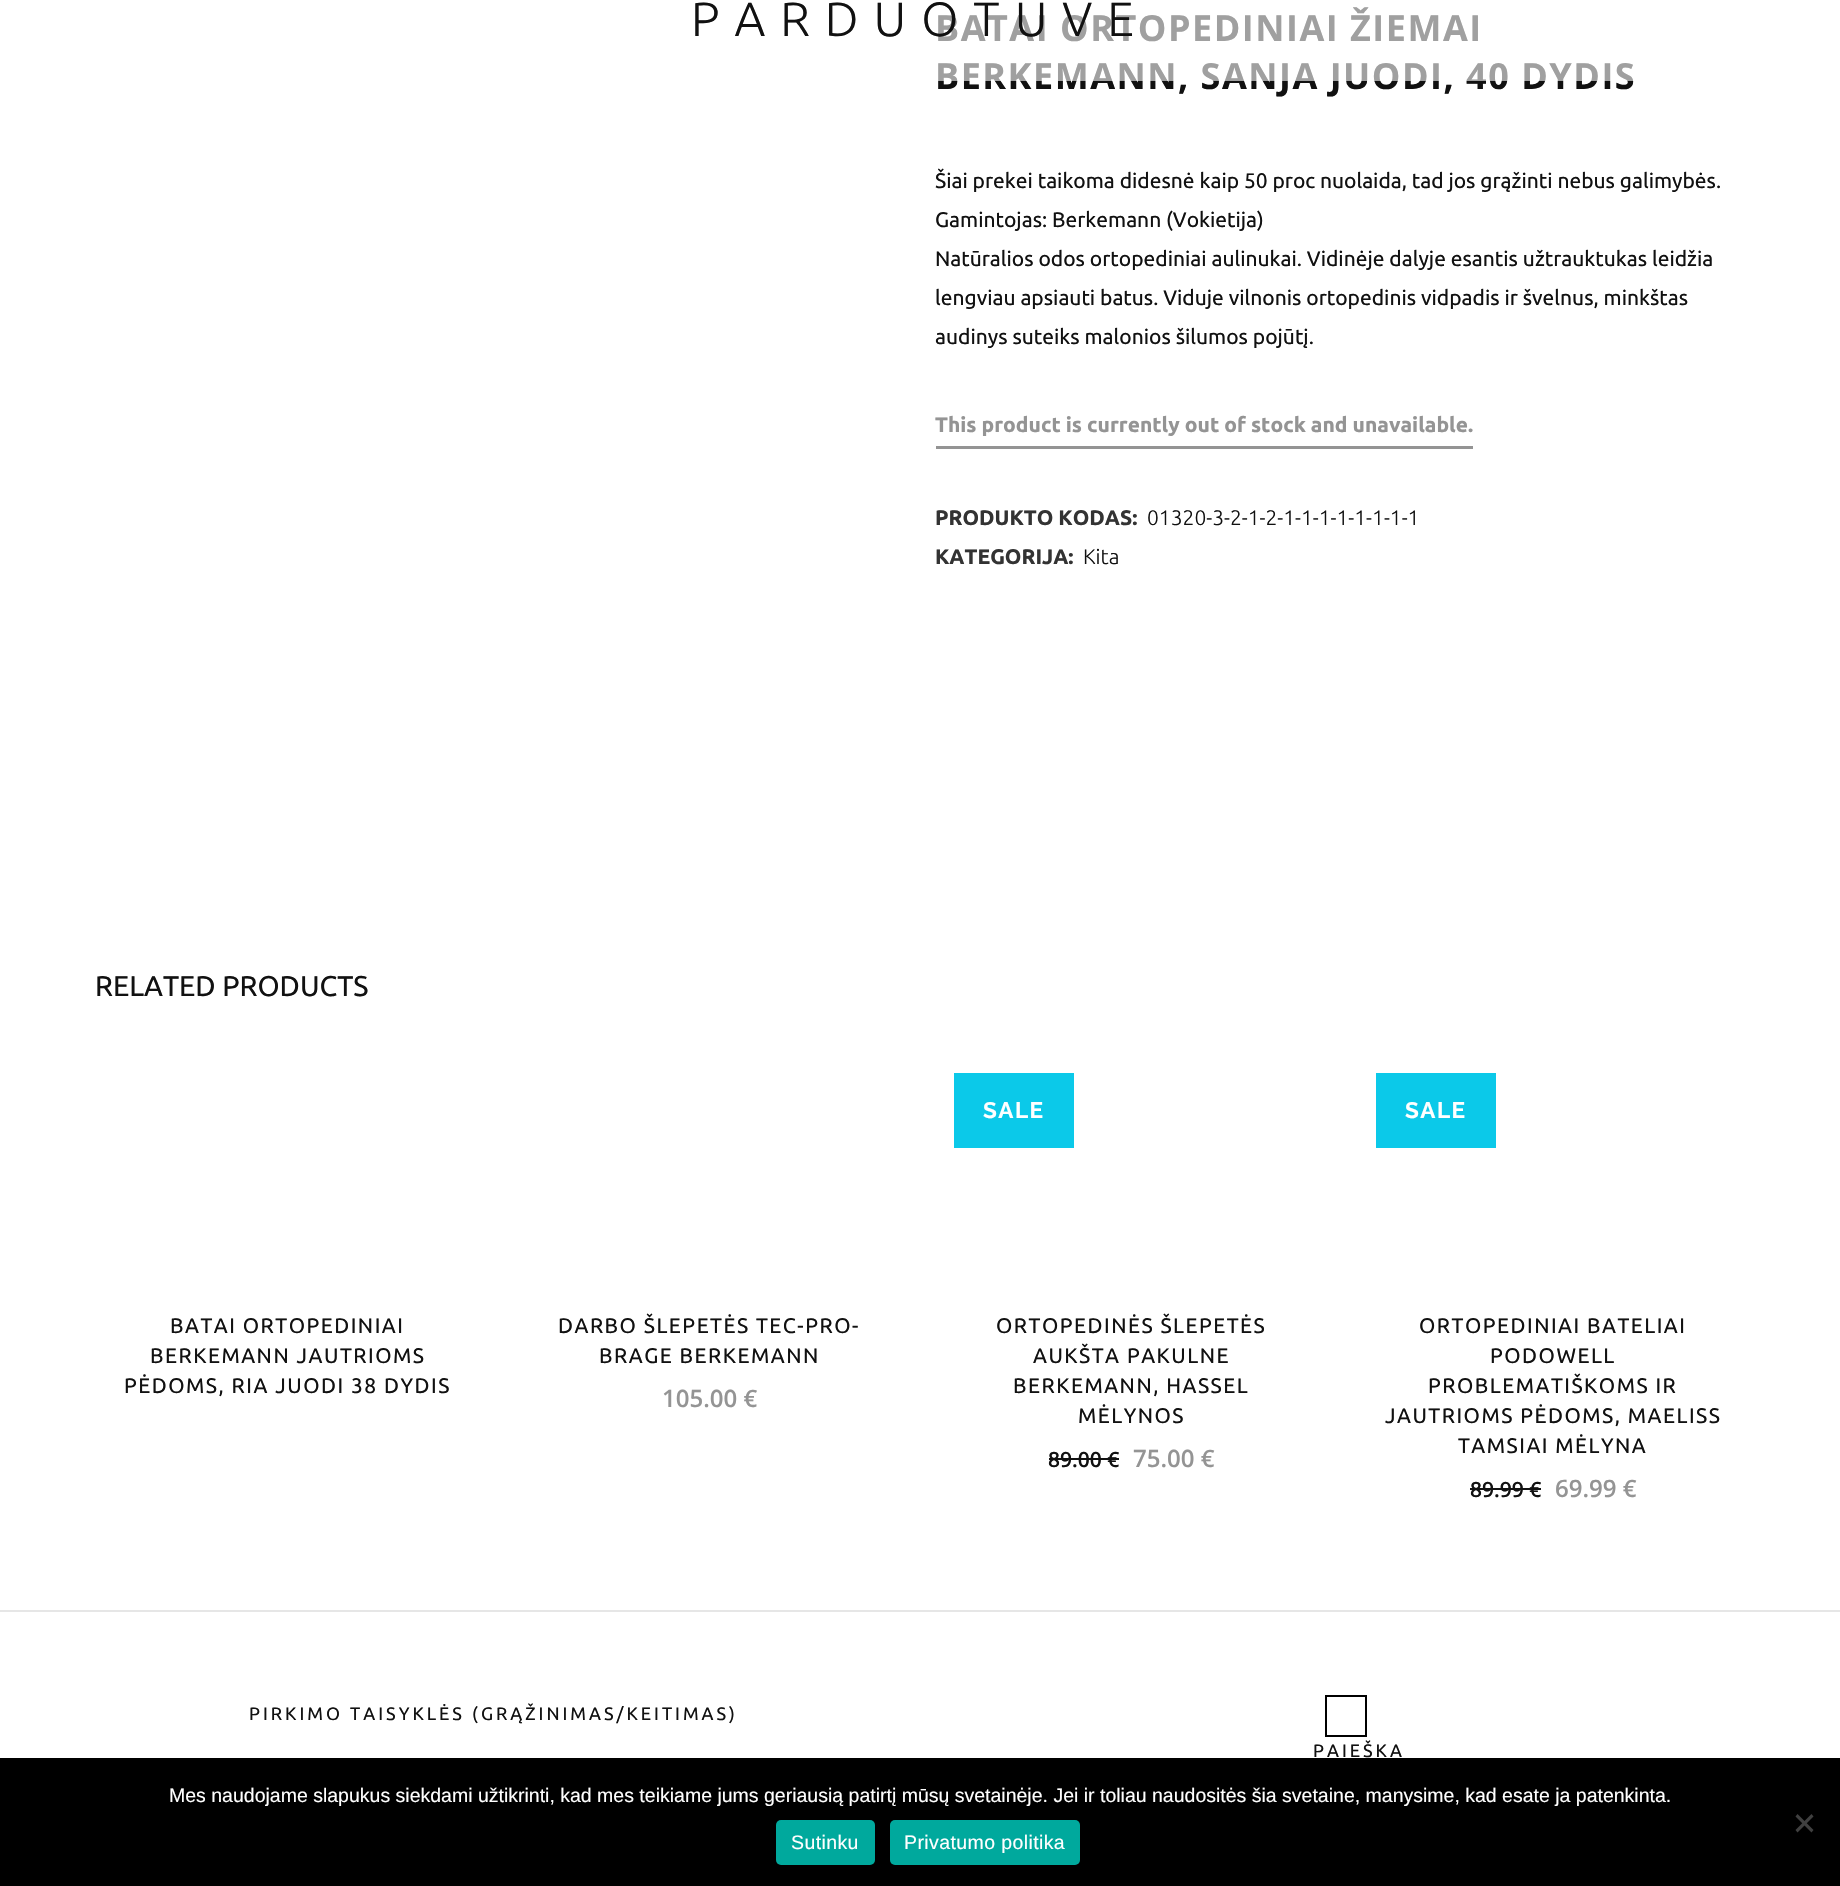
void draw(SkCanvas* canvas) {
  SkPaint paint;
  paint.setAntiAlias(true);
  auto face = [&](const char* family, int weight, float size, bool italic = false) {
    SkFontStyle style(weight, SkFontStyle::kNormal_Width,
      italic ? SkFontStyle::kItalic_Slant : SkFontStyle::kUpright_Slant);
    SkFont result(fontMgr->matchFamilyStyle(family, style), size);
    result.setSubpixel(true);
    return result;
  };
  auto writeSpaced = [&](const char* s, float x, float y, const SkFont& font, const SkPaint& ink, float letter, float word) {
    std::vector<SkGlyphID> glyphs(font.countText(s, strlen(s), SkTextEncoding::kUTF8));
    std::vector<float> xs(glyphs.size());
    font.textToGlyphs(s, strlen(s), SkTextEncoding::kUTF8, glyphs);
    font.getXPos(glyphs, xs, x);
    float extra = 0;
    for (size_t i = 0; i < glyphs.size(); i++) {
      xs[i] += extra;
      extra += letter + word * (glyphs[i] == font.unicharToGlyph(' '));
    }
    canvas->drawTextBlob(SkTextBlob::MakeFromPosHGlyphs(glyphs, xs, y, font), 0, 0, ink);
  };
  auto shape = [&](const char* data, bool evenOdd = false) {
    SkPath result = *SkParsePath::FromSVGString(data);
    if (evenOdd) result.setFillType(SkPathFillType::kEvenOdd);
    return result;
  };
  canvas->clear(0xffffffff);
  {
    const struct { float x, y, w, h; SkColor color; } items[] = {
      {936, 446, 537, 3, 0xff949494},
      {954, 1073, 120, 75, 0xff0bc9e9},
      {1049, 1458, 70, 2, 0xff111111},
      {1376, 1073, 120, 75, 0xff0bc9e9},
      {1470, 1488, 71, 2, 0xff111111},
      {0, 1610, 1840, 2, 0xffe6e6e6},
    };
    for (auto [x, y, w, h, color] : items) {
      paint.setColor(color);
      canvas->drawRect(SkRect::MakeXYWH(x, y, w, h), paint);
    }
  }
  paint.setStroke(true);
  paint.setStrokeWidth(2);
  paint.setColor(0xff000000);
  canvas->drawRect(SkRect::MakeXYWH(1326, 1696, 40, 40), paint);
  paint.setStroke(false);
  canvas->drawRect(SkRect::MakeXYWH(0, 1758, 1840, 128), paint);
  paint.setColor(0xff404040);
  canvas->drawPath(shape("M1811.5 1814L1813.5 1816.5L1797.5 1832.5L1795.5 1830Z"), paint);
  canvas->drawPath(shape("M1795.5 1816.5L1797.5 1814L1813.5 1830L1811.5 1832.5Z"), paint);
  paint.setColor(0xff00a99d);
  canvas->drawRoundRect(SkRect::MakeXYWH(776, 1820, 99, 45), 5, 5, paint);
  canvas->drawRoundRect(SkRect::MakeXYWH(890, 1820, 190, 45), 5, 5, paint);
  auto f0 = face("Open Sans", 700, 36);
  paint.setColor(0xff111111);
  writeSpaced("BATAI ORTOPEDINIAI ŽIEMAI", 935, 41, f0, paint, 1.5f, 0);
  writeSpaced("BERKEMANN, SANJA JUODI, 40 DYDIS", 935, 89, f0, paint, 1.5f, 0);
  paint.setColor(0x99ffffff);
  canvas->drawRect(SkRect::MakeXYWH(938, 7, 696, 74), paint);
  auto f1 = face("Ubuntu", 300, 48);
  paint.setColor(0xff111111);
  writeSpaced("PARDUOTUVĖ", 691, 36, f1, paint, 15, 0);
  auto f2 = face("Ubuntu", 400, 21);
  {
    const struct { const char* s; float x, y; } items[] = {
      {"Šiai prekei taikoma didesnė kaip 50 proc nuolaida, tad jos grąžinti nebus galimybės.", 935, 188},
      {"Gamintojas: Berkemann (Vokietija)", 935, 227},
      {"Natūralios odos ortopediniai aulinukai. Vidinėje dalyje esantis užtrauktukas leidžia", 935, 266},
      {"lengviau apsiauti batus. Viduje vilnonis ortopedinis vidpadis ir švelnus, minkštas", 935, 305},
      {"audinys suteiks malonios šilumos pojūtį.", 935, 344},
    };
    for (auto [s, x, y] : items) {
      canvas->drawString(s, x, y, f2, paint);
    }
  }
  auto f3 = face("Ubuntu", 700, 21);
  paint.setColor(0xff949494);
  canvas->drawString("This product is currently out of stock and unavailable.", 935, 432, f3, paint);
  paint.setColor(0xff333333);
  canvas->drawString("PRODUKTO KODAS:", 935, 525, f3, paint);
  auto f4 = face("Ubuntu", 300, 21);
  paint.setColor(0xff111111);
  canvas->drawString("01320-3-2-1-2-1-1-1-1-1-1-1-1", 1147, 525, f4, paint);
  paint.setColor(0xff333333);
  canvas->drawString("KATEGORIJA:", 935, 564, f3, paint);
  paint.setColor(0xff111111);
  canvas->drawString("Kita", 1083, 564, f4, paint);
  auto f5 = face("Ubuntu", 400, 28.5f);
  canvas->drawString("RELATED PRODUCTS", 95, 996, f5, paint);
  {
    const struct { const char* s; float x, y; } items[] = {
      {"BATAI ORTOPEDINIAI", 170, 1333},
      {"BERKEMANN JAUTRIOMS", 150, 1363},
      {"PĖDOMS, RIA JUODI 38 DYDIS", 124, 1393},
      {"DARBO ŠLEPETĖS TEC-PRO-", 558, 1333},
      {"BRAGE BERKEMANN", 599, 1363},
    };
    for (auto [s, x, y] : items) {
      writeSpaced(s, x, y, f2, paint, 1.5f, 0);
    }
  }
  auto f6 = face("Open Sans", 600, 24);
  paint.setColor(0xff949494);
  canvas->drawString("105.00 €", 662, 1407, f6, paint);
  auto f7 = face("Raleway", 700, 22.5f);
  paint.setColor(0xffffffff);
  writeSpaced("SALE", 983, 1118, f7, paint, 1.5f, 0);
  paint.setColor(0xff111111);
  {
    const struct { const char* s; float x, y; } items[] = {
      {"ORTOPEDINĖS ŠLEPETĖS", 996, 1333},
      {"AUKŠTA PAKULNE", 1033, 1363},
      {"BERKEMANN, HASSEL", 1013, 1393},
      {"MĖLYNOS", 1078, 1423},
    };
    for (auto [s, x, y] : items) {
      writeSpaced(s, x, y, f2, paint, 1.5f, 0);
    }
  }
  auto f8 = face("Open Sans", 600, 21);
  canvas->drawString("89.00 €", 1048, 1467, f8, paint);
  paint.setColor(0xff949494);
  canvas->drawString("75.00 €", 1133, 1467, f6, paint);
  paint.setColor(0xffffffff);
  writeSpaced("SALE", 1405, 1118, f7, paint, 1.5f, 0);
  paint.setColor(0xff111111);
  {
    const struct { const char* s; float x, y; } items[] = {
      {"ORTOPEDINIAI BATELIAI", 1419, 1333},
      {"PODOWELL", 1490, 1363},
      {"PROBLEMATIŠKOMS IR", 1428, 1393},
      {"JAUTRIOMS PĖDOMS, MAELISS", 1385, 1423},
      {"TAMSIAI MĖLYNA", 1458, 1453},
    };
    for (auto [s, x, y] : items) {
      writeSpaced(s, x, y, f2, paint, 1.5f, 0);
    }
  }
  canvas->drawString("89.99 €", 1470, 1497, f8, paint);
  paint.setColor(0xff949494);
  canvas->drawString("69.99 €", 1555, 1497, f6, paint);
  auto f9 = face("Ubuntu", 400, 18);
  paint.setColor(0xff111111);
  writeSpaced("PIRKIMO TAISYKLĖS (GRĄŽINIMAS/KEITIMAS)", 249, 1720, f9, paint, 3, 0);
  writeSpaced("PAIEŠKA", 1313, 1757, f9, paint, 3, 0);
  auto f10 = face("Liberation Sans", 400, 19.5f);
  paint.setColor(0xffffffff);
  canvas->drawString("Mes naudojame slapukus siekdami užtikrinti, kad mes teikiame jums geriausią patirtį mūsų svetainėje. Jei ir toliau naudositės šia svetaine, manysime, kad esate ja patenkinta.", 169, 1802, f10, paint);
  writeSpaced("Sutinku", 791, 1849, f10, paint, 0.4f, 0);
  writeSpaced("Privatumo politika", 904, 1849, f10, paint, 0.4f, 0);
}
